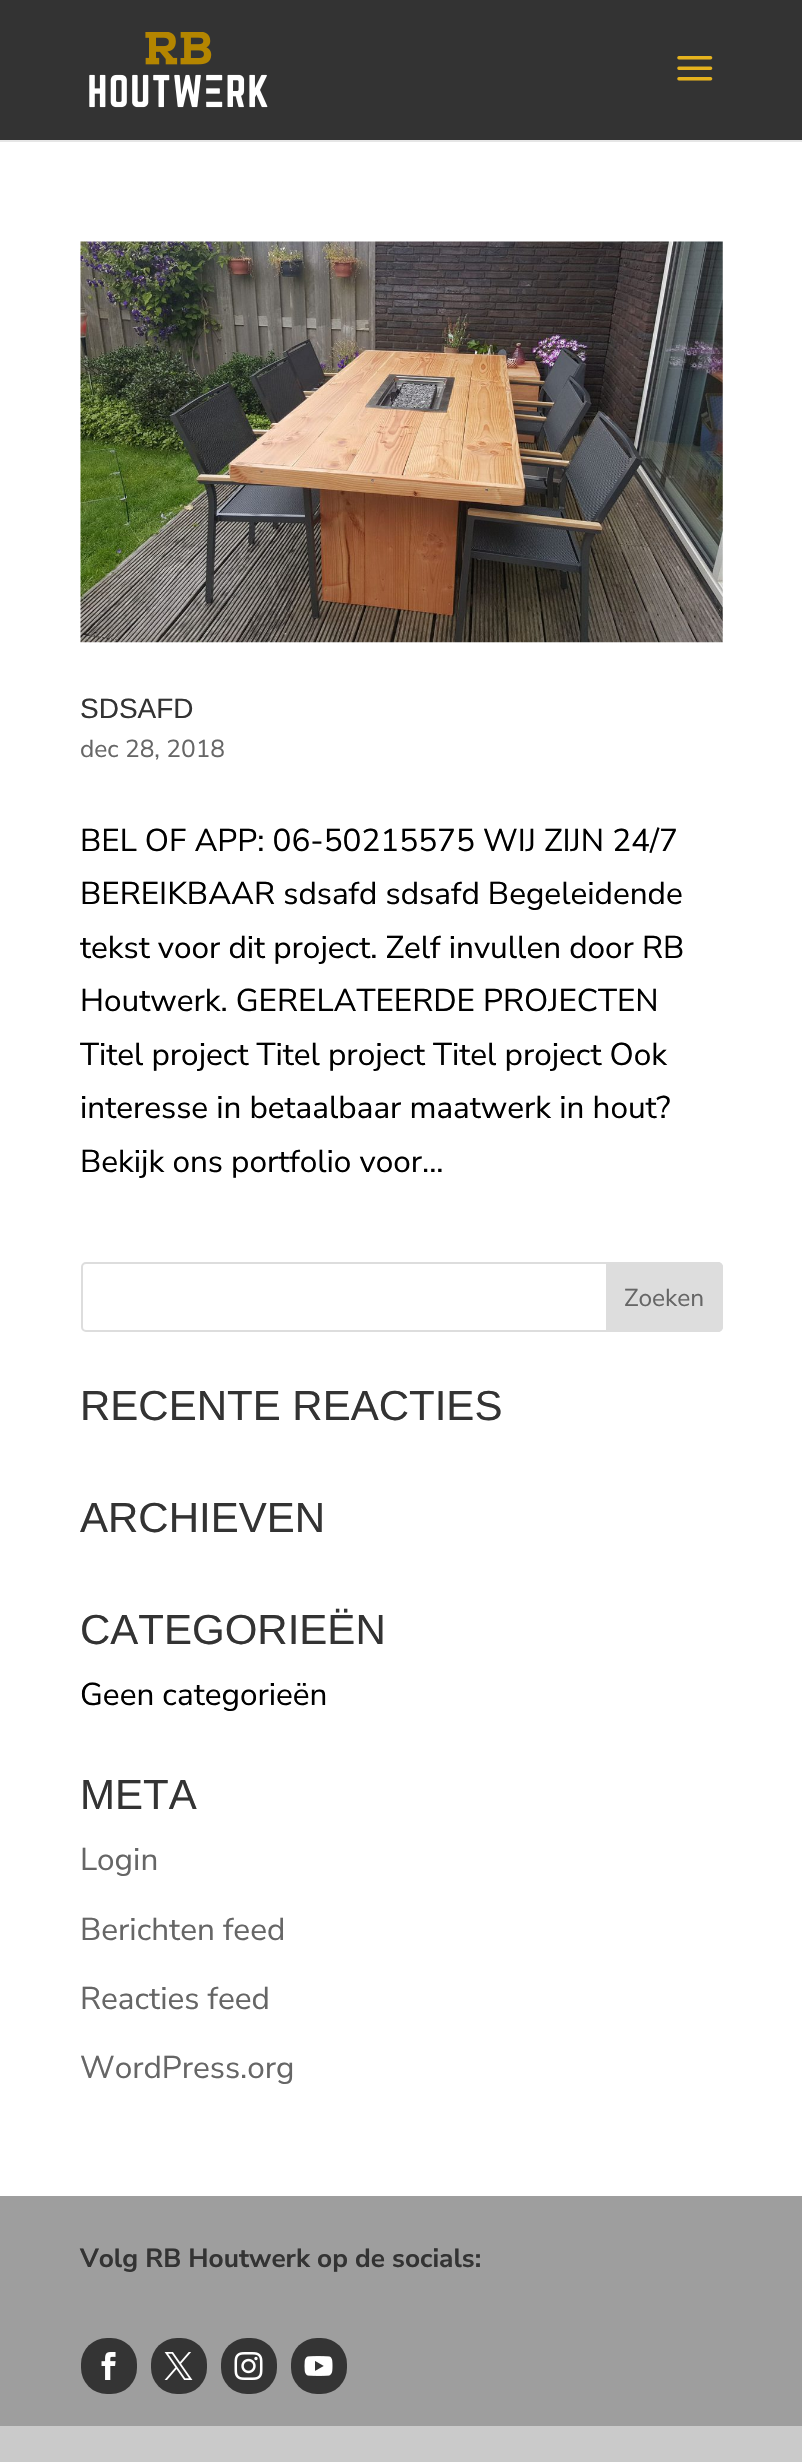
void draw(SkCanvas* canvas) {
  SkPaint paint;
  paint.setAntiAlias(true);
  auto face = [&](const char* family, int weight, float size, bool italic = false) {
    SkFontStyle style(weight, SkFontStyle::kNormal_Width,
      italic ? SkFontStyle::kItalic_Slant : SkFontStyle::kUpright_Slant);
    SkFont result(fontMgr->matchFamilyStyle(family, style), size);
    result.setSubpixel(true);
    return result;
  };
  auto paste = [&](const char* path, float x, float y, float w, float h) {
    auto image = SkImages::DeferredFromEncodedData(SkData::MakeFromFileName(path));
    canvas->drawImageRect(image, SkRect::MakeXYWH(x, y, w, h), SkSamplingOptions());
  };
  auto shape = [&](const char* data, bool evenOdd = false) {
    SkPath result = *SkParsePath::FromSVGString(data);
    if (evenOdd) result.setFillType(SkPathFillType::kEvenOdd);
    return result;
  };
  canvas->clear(0xffffffff);
  paint.setColor(0xffe6e6e6);
  canvas->drawRect(SkRect::MakeXYWH(0, 140, 802, 2), paint);
  paint.setColor(0xff333333);
  canvas->drawRect(SkRect::MakeXYWH(0, 0, 802, 140), paint);
  paste("img/1.png", 89, 32, 179, 76);
  paste("img/2.png", 677, 56, 36, 25);
  paste("img/3.png", 80, 241, 643, 402);
  paint.setStroke(true);
  paint.setStrokeWidth(2);
  paint.setColor(0xffdddddd);
  canvas->drawRoundRect(SkRect::MakeXYWH(82, 1263, 640, 68), 4, 4, paint);
  paint.setStroke(false);
  canvas->drawPath(shape("M607 1263H718C720 1263 722 1265 722 1267V1327C722 1329 720 1331 718 1331H607Z"), paint);
  paint.setStroke(true);
  canvas->drawPath(shape("M607 1263H718C720 1263 722 1265 722 1267V1327C722 1329 720 1331 718 1331H607Z"), paint);
  paint.setStroke(false);
  paint.setColor(0xffcacaca);
  canvas->drawRect(SkRect::MakeXYWH(0, 2426, 802, 36), paint);
  paint.setColor(0xff9e9e9e);
  canvas->drawRect(SkRect::MakeXYWH(0, 2196, 802, 230), paint);
  paint.setColor(0xff343434);
  canvas->drawRoundRect(SkRect::MakeXYWH(81, 2338, 56, 56), 26, 26, paint);
  paste("img/4.png", 101, 2352, 15, 28);
  canvas->drawRoundRect(SkRect::MakeXYWH(151, 2338, 56, 56), 26, 26, paint);
  paste("img/5.png", 164, 2352, 29, 28);
  canvas->drawRoundRect(SkRect::MakeXYWH(221, 2338, 56, 56), 26, 26, paint);
  paste("img/6.png", 234, 2352, 29, 28);
  canvas->drawRoundRect(SkRect::MakeXYWH(291, 2338, 56, 56), 26, 26, paint);
  paste("img/7.png", 304, 2356, 29, 20);
  auto f0 = face("Liberation Sans", 400, 28);
  paint.setColor(0xff333333);
  canvas->drawString("SDSAFD", 80, 718, f0, paint);
  auto f1 = face("Nunito Sans", 400, 24.5f);
  paint.setColor(0xff666666);
  canvas->drawString("dec 28, 2018", 80, 757, f1, paint);
  auto f2 = face("Nunito Sans", 400, 31.5f);
  paint.setColor(0xff000000);
  {
    const struct { const char* s; float x, y; } items[] = {
      {"BEL OF APP: 06-50215575 WIJ ZIJN 24/7", 80, 851},
      {"BEREIKBAAR sdsafd sdsafd Begeleidende", 80, 904},
      {"tekst voor dit project. Zelf invullen door RB", 80, 958},
      {"Houtwerk. GERELATEERDE PROJECTEN", 80, 1011},
      {"Titel project Titel project Titel project Ook", 80, 1065},
      {"interesse in betaalbaar maatwerk in hout?", 80, 1118},
      {"Bekijk ons portfolio voor...", 80, 1172},
    };
    for (auto [s, x, y] : items) {
      canvas->drawString(s, x, y, f2, paint);
    }
  }
  paint.setColor(0xff666666);
  canvas->drawString("Zoeken", 624, 1306, f1, paint);
  auto f3 = face("Liberation Sans", 400, 42);
  paint.setColor(0xff333333);
  {
    const struct { const char* s; float x, y; } items[] = {
      {"RECENTE REACTIES", 80, 1420},
      {"ARCHIEVEN", 80, 1532},
      {"CATEGORIEËN", 80, 1644},
    };
    for (auto [s, x, y] : items) {
      canvas->drawString(s, x, y, f3, paint);
    }
  }
  paint.setColor(0xff000000);
  canvas->drawString("Geen categorieën", 80, 1705, f2, paint);
  paint.setColor(0xff333333);
  canvas->drawString("META", 80, 1809, f3, paint);
  paint.setColor(0xff666666);
  {
    const struct { const char* s; float x, y; } items[] = {
      {"Login", 80, 1870},
      {"Berichten feed", 80, 1940},
      {"Reacties feed", 80, 2009},
      {"WordPress.org", 80, 2078},
    };
    for (auto [s, x, y] : items) {
      canvas->drawString(s, x, y, f2, paint);
    }
  }
  auto f4 = face("Nunito Sans", 700, 26.25f);
  paint.setColor(0xff333333);
  canvas->drawString("Volg RB Houtwerk op de socials:", 80, 2267, f4, paint);
}
